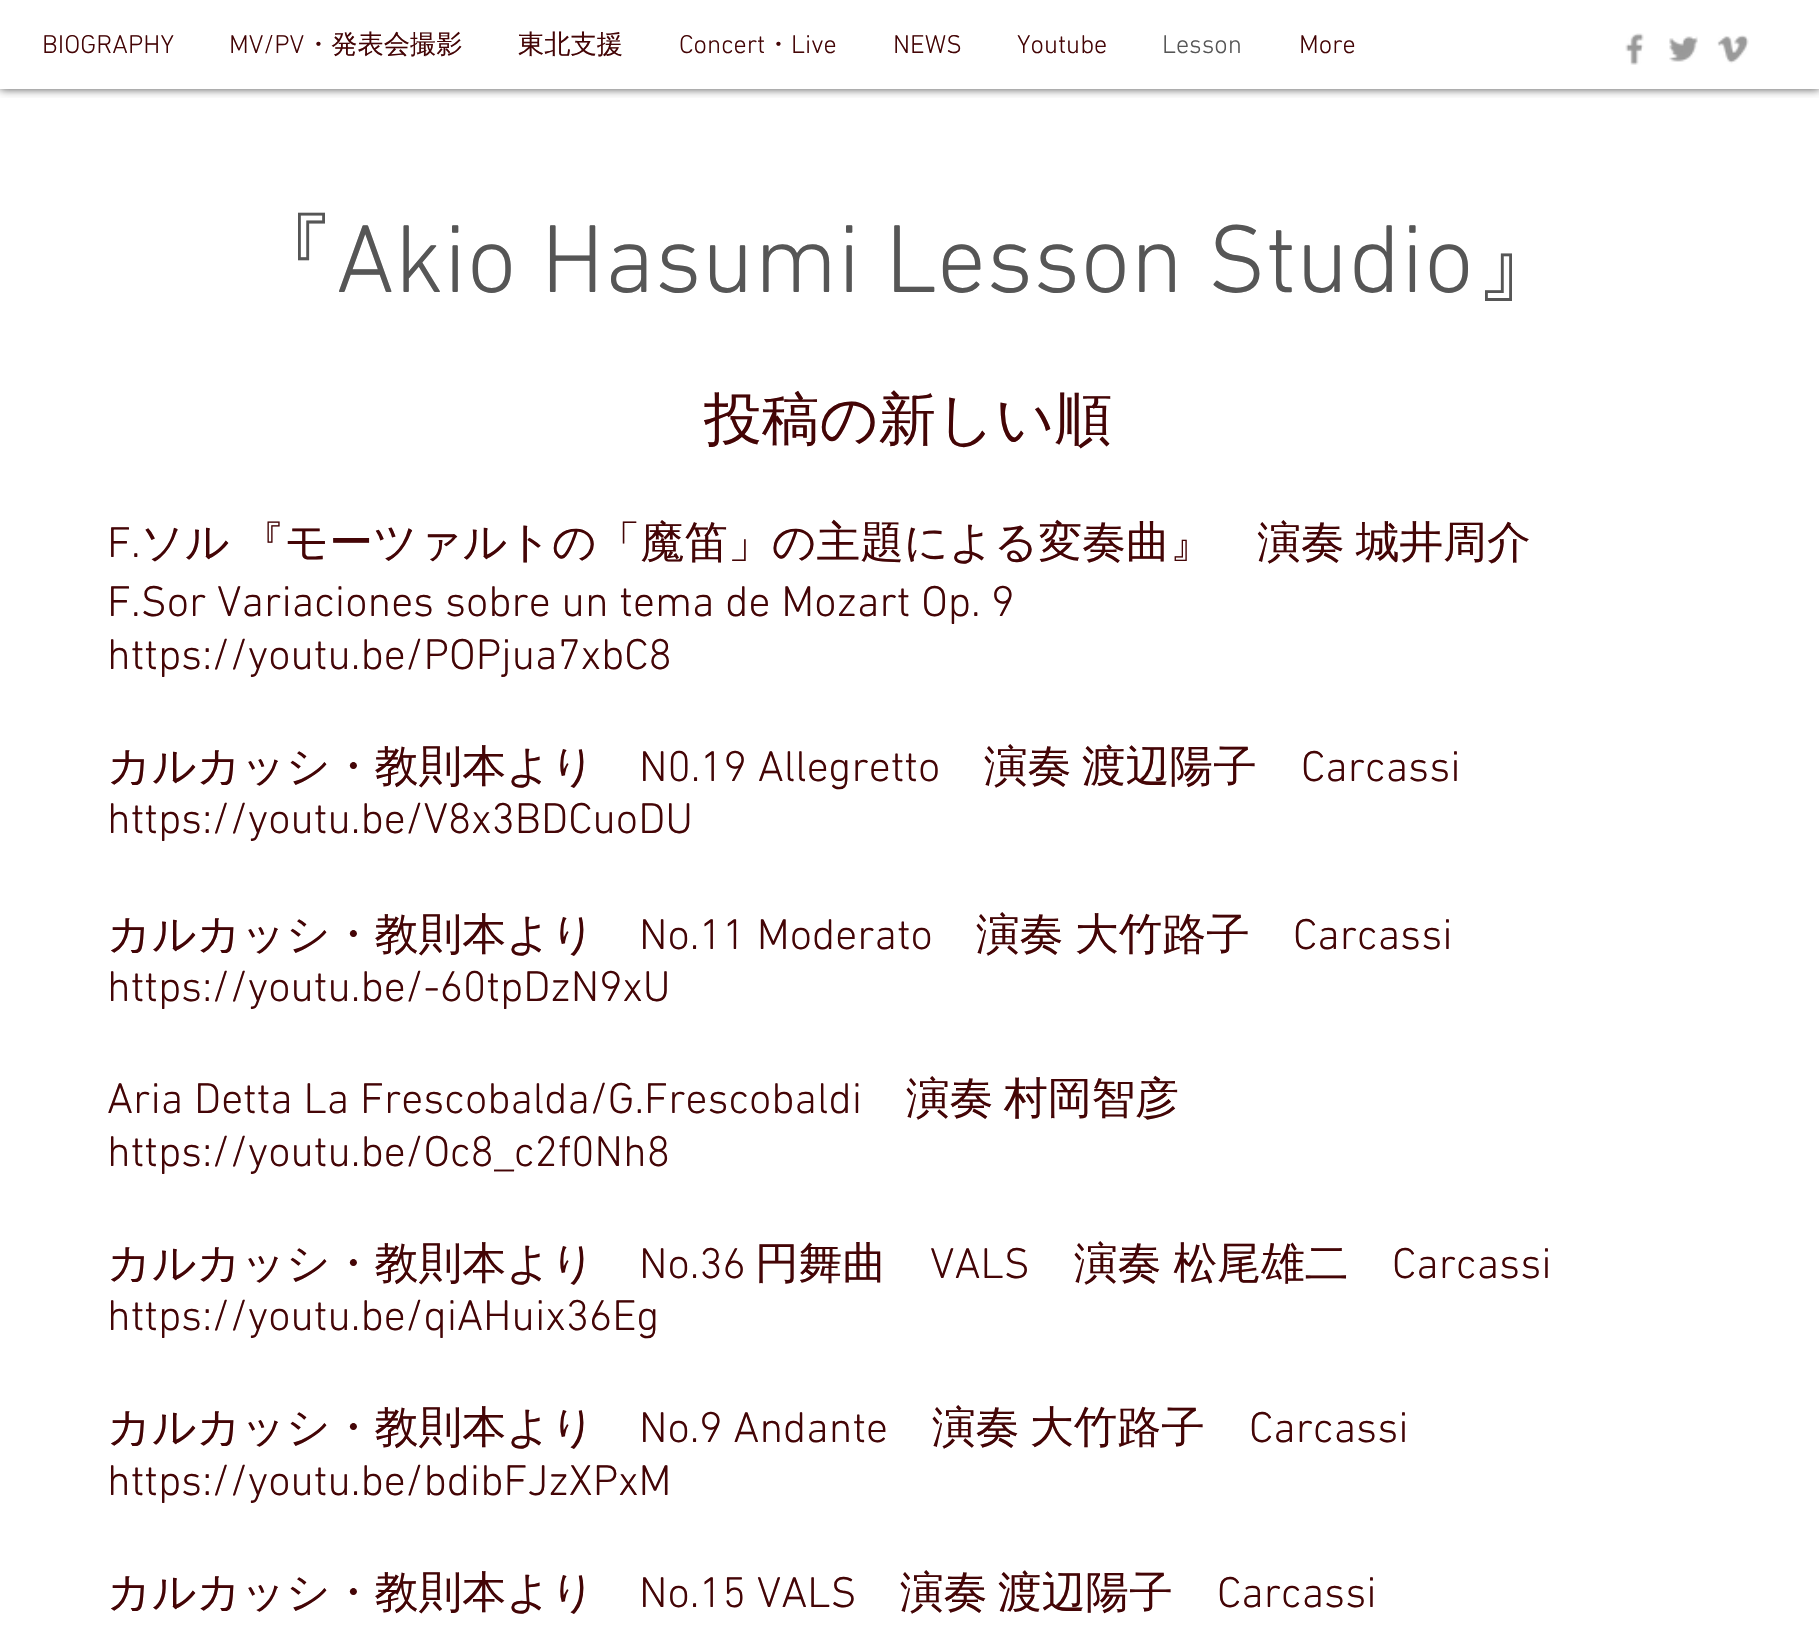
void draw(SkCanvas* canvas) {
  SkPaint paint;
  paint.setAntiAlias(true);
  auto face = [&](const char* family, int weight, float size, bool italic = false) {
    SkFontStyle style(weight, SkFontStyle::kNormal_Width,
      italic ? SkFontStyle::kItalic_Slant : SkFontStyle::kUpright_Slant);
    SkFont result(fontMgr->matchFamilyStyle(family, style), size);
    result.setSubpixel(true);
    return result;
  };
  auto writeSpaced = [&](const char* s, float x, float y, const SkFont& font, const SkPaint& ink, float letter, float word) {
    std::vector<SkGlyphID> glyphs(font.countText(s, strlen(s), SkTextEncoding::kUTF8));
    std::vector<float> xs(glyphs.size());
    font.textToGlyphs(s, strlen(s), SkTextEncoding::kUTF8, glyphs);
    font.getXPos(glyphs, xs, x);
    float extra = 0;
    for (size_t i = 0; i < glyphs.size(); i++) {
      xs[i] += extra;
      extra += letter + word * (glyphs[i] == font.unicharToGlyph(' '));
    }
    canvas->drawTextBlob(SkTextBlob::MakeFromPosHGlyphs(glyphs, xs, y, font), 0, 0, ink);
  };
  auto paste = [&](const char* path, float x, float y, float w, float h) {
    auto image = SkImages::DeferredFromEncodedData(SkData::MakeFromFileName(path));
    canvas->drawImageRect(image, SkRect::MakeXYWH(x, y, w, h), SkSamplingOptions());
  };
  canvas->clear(0xffffffff);
  canvas->save();
  canvas->clipRect(SkRect::MakeXYWH(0, 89, 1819, 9));
  paint.setColor(0xb3000000);
  paint.setMaskFilter(SkMaskFilter::MakeBlur(kNormal_SkBlurStyle, 4.5f));
  canvas->drawRect(SkRect::MakeXYWH(0, 0, 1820, 89), paint);
  paint.setMaskFilter(nullptr);
  canvas->restore();
  paste("img/1.png", 1625, 33, 19, 32);
  paste("img/2.png", 1669, 36, 29, 26);
  paste("img/3.png", 1717, 35, 32, 29);
  auto f0 = face("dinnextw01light", 300, 26.25f);
  paint.setColor(0xff440506);
  canvas->drawString("BIOGRAPHY", 42, 53, f0, paint);
  canvas->drawString("MV/PV", 229, 53, f0, paint);
  auto f1 = face("WenQuanYi Zen Hei", 500, 26.25f);
  canvas->drawString("・発表会撮影", 305, 53, f1, paint);
  canvas->drawString("東北支援", 518, 53, f1, paint);
  canvas->drawString("Concert", 679, 53, f0, paint);
  canvas->drawString("・", 765, 53, f1, paint);
  {
    const struct { const char* s; float x, y; } items[] = {
      {"Live", 791, 53},
      {"NEWS", 893, 53},
      {"Youtube", 1017, 53},
    };
    for (auto [s, x, y] : items) {
      canvas->drawString(s, x, y, f0, paint);
    }
  }
  paint.setColor(0xff565656);
  canvas->drawString("Lesson", 1162, 53, f0, paint);
  paint.setColor(0xff440506);
  canvas->drawString("More", 1299, 53, f0, paint);
  auto f2 = face("WenQuanYi Zen Hei", 500, 98);
  paint.setColor(0xff565656);
  canvas->drawString("『", 238, 292, f2, paint);
  auto f3 = face("dinnextw01light", 300, 98);
  canvas->drawString("Akio Hasumi Lesson Studio", 336, 292, f3, paint);
  canvas->drawString("』", 1474, 292, f2, paint);
  auto f4 = face("WenQuanYi Zen Hei", 500, 57.75f);
  paint.setColor(0xff440506);
  canvas->drawString("投稿の新しい順", 704, 439, f4, paint);
  auto f5 = face("dinnextw01light", 300, 43.75f);
  canvas->drawString("F.", 107, 557, f5, paint);
  auto f6 = face("WenQuanYi Zen Hei", 500, 43.75f);
  writeSpaced("ソル 『モーツァルトの「魔笛」の主題による変奏曲』　演奏 城井周介", 140, 557, f6, paint, 0, -2);
  canvas->drawString("F.Sor Variaciones sobre un tema de Mozart Op. 9", 107, 616, f5, paint);
  canvas->drawString("https://youtu.be/POPjua7xbC8", 107, 669, f5, paint);
  canvas->drawString("カルカッシ・教則本より", 107, 781, f6, paint);
  canvas->drawString("N0.19 Allegretto", 639, 781, f5, paint);
  canvas->drawString("演奏", 984, 781, f6, paint);
  canvas->drawString("渡辺陽子", 1082, 781, f6, paint);
  canvas->drawString("Carcassi", 1301, 781, f5, paint);
  canvas->drawString("https://youtu.be/V8x3BDCuoDU", 107, 833, f5, paint);
  canvas->drawString("カルカッシ・教則本より", 107, 949, f6, paint);
  canvas->drawString("No.11 Moderato", 639, 949, f5, paint);
  canvas->drawString("演奏", 976, 949, f6, paint);
  canvas->drawString("大竹路子", 1075, 949, f6, paint);
  {
    const struct { const char* s; float x, y; } items[] = {
      {"Carcassi", 1293, 949},
      {"https://youtu.be/-60tpDzN9xU", 107, 1001},
      {"Aria Detta La Frescobalda/G.Frescobaldi", 107, 1113},
    };
    for (auto [s, x, y] : items) {
      canvas->drawString(s, x, y, f5, paint);
    }
  }
  canvas->drawString("演奏", 906, 1113, f6, paint);
  canvas->drawString("村岡智彦", 1004, 1113, f6, paint);
  canvas->drawString("https://youtu.be/Oc8_c2f0Nh8", 107, 1166, f5, paint);
  canvas->drawString("カルカッシ・教則本より", 107, 1278, f6, paint);
  canvas->drawString("No.36", 639, 1278, f5, paint);
  canvas->drawString("円舞曲", 755, 1278, f6, paint);
  canvas->drawString("VALS", 930, 1278, f5, paint);
  writeSpaced("演奏 松尾雄二", 1074, 1278, f6, paint, 0, -1);
  canvas->drawString("Carcassi", 1392, 1278, f5, paint);
  canvas->drawString("https://youtu.be/qiAHuix36Eg", 107, 1330, f5, paint);
  canvas->drawString("カルカッシ・教則本より", 107, 1442, f6, paint);
  canvas->drawString("No.9 Andante", 639, 1442, f5, paint);
  canvas->drawString("演奏", 932, 1442, f6, paint);
  canvas->drawString("大竹路子", 1030, 1442, f6, paint);
  canvas->drawString("Carcassi", 1249, 1442, f5, paint);
  canvas->drawString("https://youtu.be/bdibFJzXPxM", 107, 1495, f5, paint);
  canvas->drawString("カルカッシ・教則本より", 107, 1607, f6, paint);
  canvas->drawString("No.15 VALS", 639, 1607, f5, paint);
  canvas->drawString("演奏", 900, 1607, f6, paint);
  canvas->drawString("渡辺陽子", 998, 1607, f6, paint);
  canvas->drawString("Carcassi", 1217, 1607, f5, paint);
}
